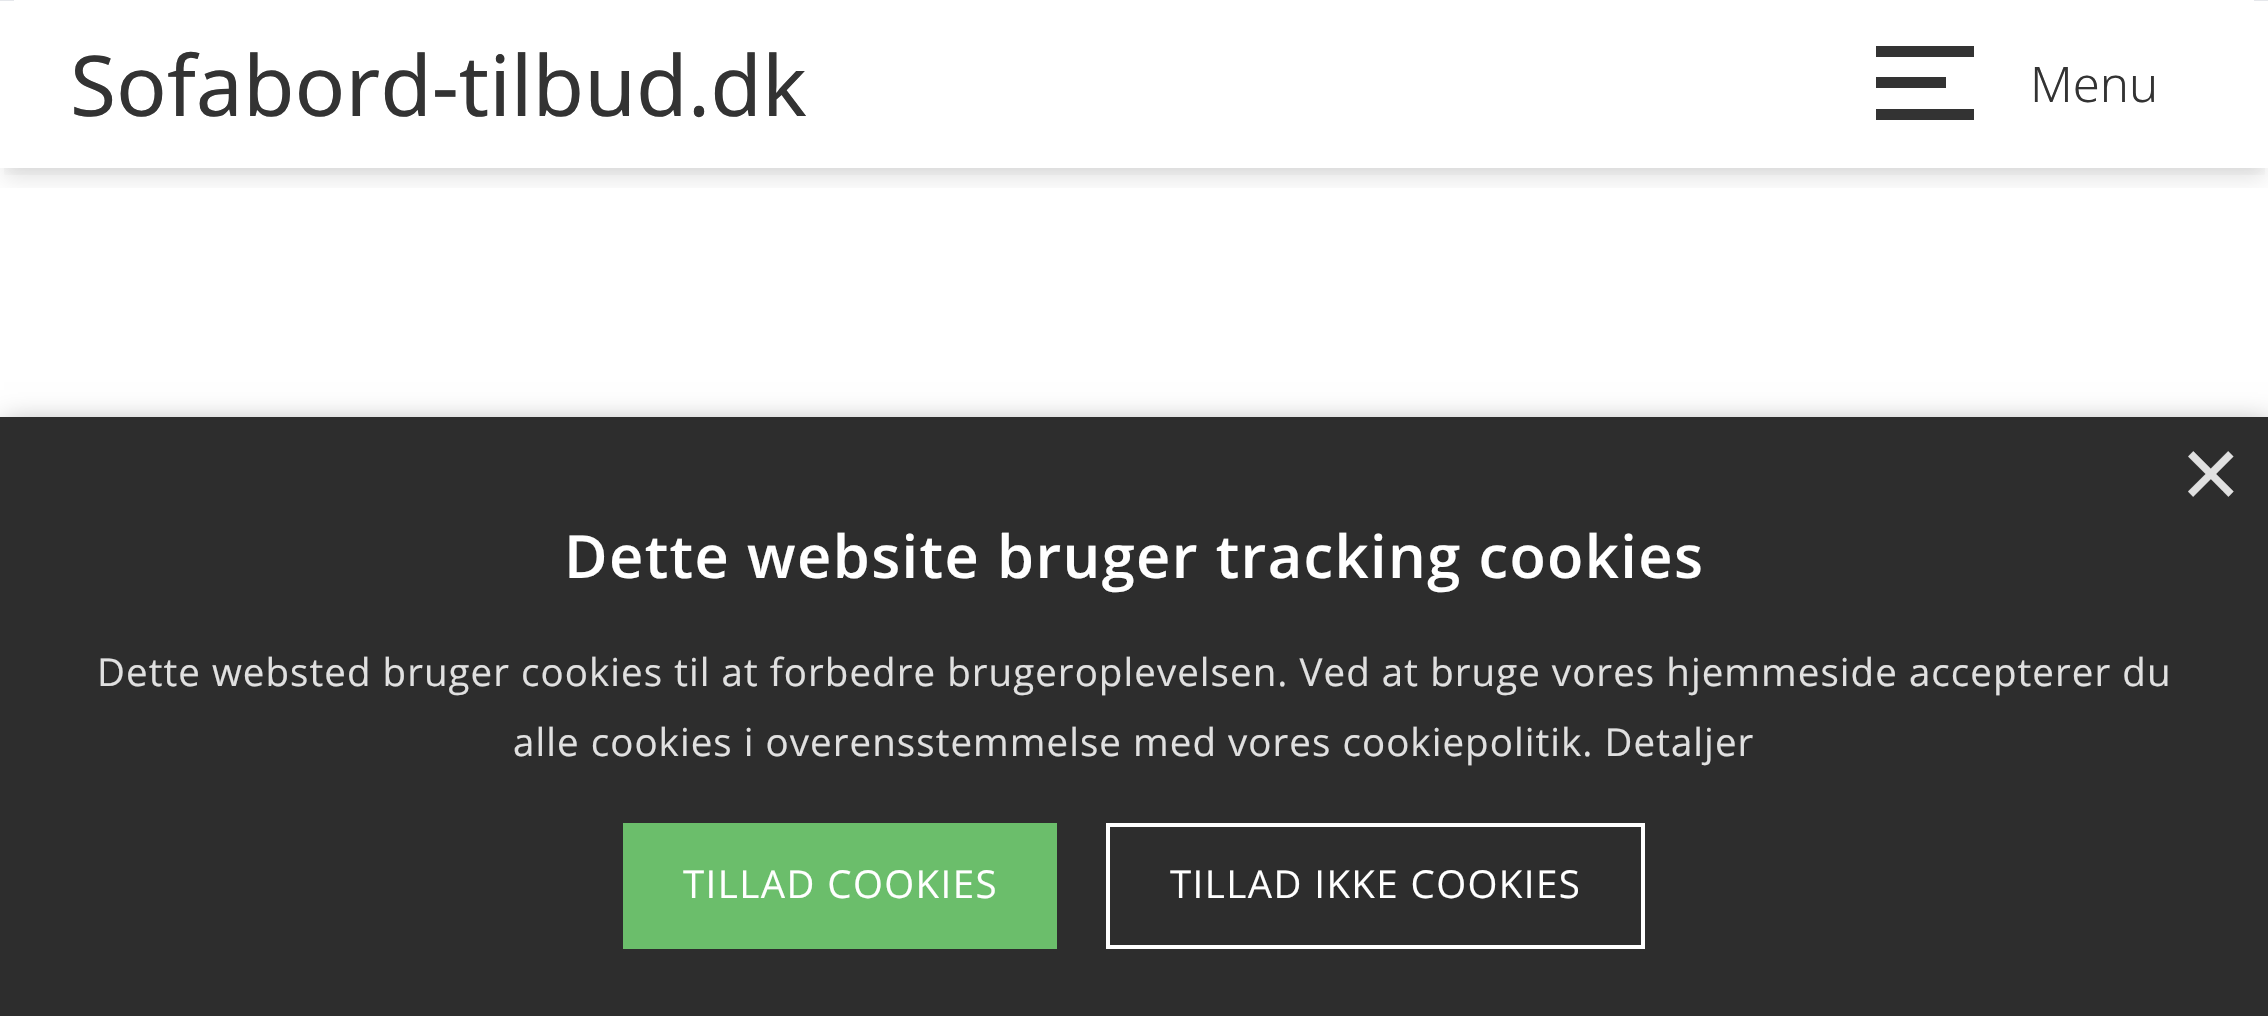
void draw(SkCanvas* canvas) {
  SkPaint paint;
  paint.setAntiAlias(true);
  auto face = [&](const char* family, int weight, float size, bool italic = false) {
    SkFontStyle style(weight, SkFontStyle::kNormal_Width,
      italic ? SkFontStyle::kItalic_Slant : SkFontStyle::kUpright_Slant);
    SkFont result(fontMgr->matchFamilyStyle(family, style), size);
    result.setSubpixel(true);
    return result;
  };
  auto writeSpaced = [&](const char* s, float x, float y, const SkFont& font, const SkPaint& ink, float letter, float word) {
    std::vector<SkGlyphID> glyphs(font.countText(s, strlen(s), SkTextEncoding::kUTF8));
    std::vector<float> xs(glyphs.size());
    font.textToGlyphs(s, strlen(s), SkTextEncoding::kUTF8, glyphs);
    font.getXPos(glyphs, xs, x);
    float extra = 0;
    for (size_t i = 0; i < glyphs.size(); i++) {
      xs[i] += extra;
      extra += letter + word * (glyphs[i] == font.unicharToGlyph(' '));
    }
    canvas->drawTextBlob(SkTextBlob::MakeFromPosHGlyphs(glyphs, xs, y, font), 0, 0, ink);
  };
  canvas->clear(0xffffffff);
  canvas->save();
  canvas->clipRect(SkRect::MakeXYWH(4, 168, 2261, 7));
  paint.setColor(0x0f000000);
  paint.setMaskFilter(SkMaskFilter::MakeBlur(kNormal_SkBlurStyle, 7));
  canvas->drawRect(SkRect::MakeXYWH(4, 11, 2261, 161), paint);
  paint.setMaskFilter(nullptr);
  canvas->restore();
  canvas->save();
  canvas->clipRect(SkRect::MakeXYWH(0, 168, 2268, 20));
  paint.setColor(0x1a000000);
  paint.setMaskFilter(SkMaskFilter::MakeBlur(kNormal_SkBlurStyle, 10.5f));
  canvas->drawRect(SkRect::MakeXYWH(4, 18, 2261, 161), paint);
  paint.setMaskFilter(nullptr);
  canvas->restore();
  {
    const struct { float x, y, w, h; SkColor color; } items[] = {
      {0, 0, 2268, 1, 0xffe5e7eb},
      {14, 0, 2240, 1, 0xffffffff},
      {1876, 46, 98, 11, 0xff333333},
      {1876, 77, 70, 11, 0xff333333},
      {1876, 109, 98, 11, 0xff333333},
    };
    for (auto [x, y, w, h, color] : items) {
      paint.setColor(color);
      canvas->drawRect(SkRect::MakeXYWH(x, y, w, h), paint);
    }
  }
  paint.setColor(0x59000000);
  paint.setMaskFilter(SkMaskFilter::MakeBlur(kNormal_SkBlurStyle, 14));
  canvas->drawRect(SkRect::MakeXYWH(4, 424, 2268, 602), paint);
  paint.setMaskFilter(nullptr);
  paint.setColor(0xff2d2d2d);
  canvas->drawRect(SkRect::MakeXYWH(0, 417, 2268, 599), paint);
  paint.setColor(0xff6bbe6b);
  canvas->drawRect(SkRect::MakeXYWH(623, 823, 434, 126), paint);
  paint.setStroke(true);
  paint.setStrokeWidth(4);
  paint.setColor(0xffffffff);
  canvas->drawRect(SkRect::MakeXYWH(1108, 825, 535, 122), paint);
  auto f0 = face("Noto Sans", 400, 84);
  paint.setStroke(false);
  paint.setColor(0xff333333);
  canvas->drawString("Sofabord-tilbud.dk", 70, 116, f0, paint);
  auto f1 = face("Noto Sans", 300, 49);
  canvas->drawString("Menu", 2030, 102, f1, paint);
  auto f2 = face("Liberation Sans", 400, 102);
  paint.setColor(0xffe0e0e0);
  canvas->drawString("×", 2181, 508, f2, paint);
  auto f3 = face("Open Sans", 600, 59.5f);
  paint.setColor(0xffffffff);
  writeSpaced("Dette website bruger tracking cookies", 564, 578, f3, paint, 1.4f, 0);
  auto f4 = face("Open Sans", 400, 38.5f);
  paint.setColor(0xffe0e0e0);
  writeSpaced("Dette websted bruger cookies til at forbedre brugeroplevelsen. Ved at bruge vores hjemmeside accepterer du", 97, 686, f4, paint, 1.05f, 0);
  writeSpaced("alle cookies i overensstemmelse med vores cookiepolitik. Detaljer", 513, 756, f4, paint, 1.05f, 0);
  paint.setColor(0xffffffff);
  writeSpaced("TILLAD COOKIES", 683, 898, f4, paint, 1.4f, 0);
  writeSpaced("TILLAD IKKE COOKIES", 1170, 898, f4, paint, 1.4f, 0);
}
